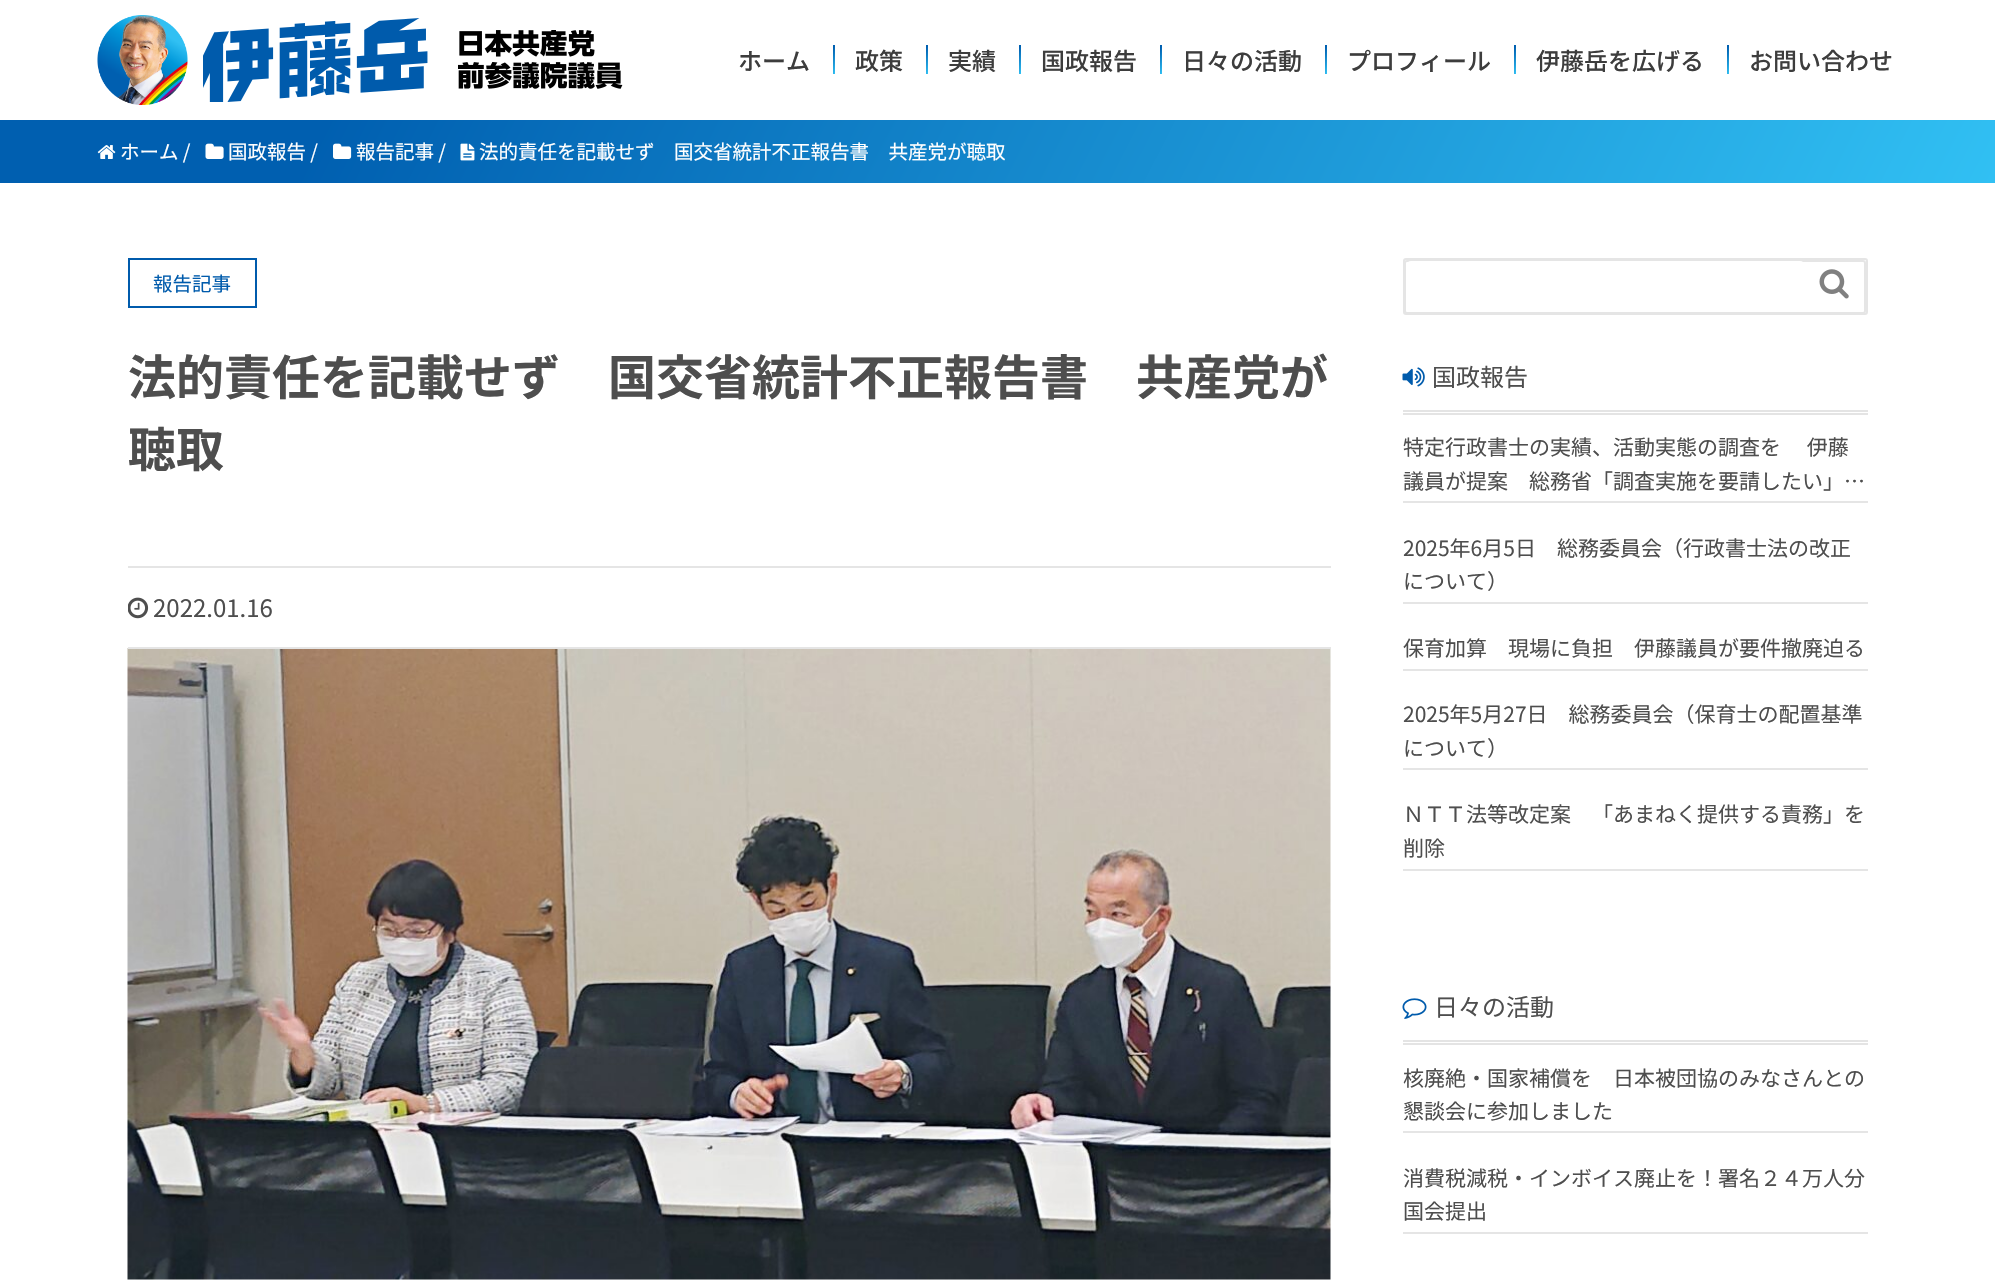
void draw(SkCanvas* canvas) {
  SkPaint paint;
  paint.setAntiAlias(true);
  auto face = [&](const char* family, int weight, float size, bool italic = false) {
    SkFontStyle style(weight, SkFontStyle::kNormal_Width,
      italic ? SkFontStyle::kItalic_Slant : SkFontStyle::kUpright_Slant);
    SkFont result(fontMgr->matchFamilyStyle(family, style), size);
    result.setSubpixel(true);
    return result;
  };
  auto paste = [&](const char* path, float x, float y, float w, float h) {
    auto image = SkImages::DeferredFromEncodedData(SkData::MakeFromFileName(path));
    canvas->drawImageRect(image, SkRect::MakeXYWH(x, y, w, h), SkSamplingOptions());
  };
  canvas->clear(0xffffffff);
  paste("img/1.png", 97, 15, 91, 90);
  paste("img/2.png", 203, 18, 225, 84);
  paste("img/3.png", 458, 30, 165, 59);
  {
    const SkColor colors[] = {0xff005fb0, 0xff31c0f3};
    const float stops[] = {0.16f, 1};
    const SkPoint ends[] = {{827, 56}, {840, 62}};
    paint.setShader(SkGradientShader::MakeLinear(ends, colors, stops, 2, SkTileMode::kClamp));
    paint.setAlpha(255);
  }
  canvas->drawRect(SkRect::MakeXYWH(833, 45, 2, 29), paint);
  {
    const SkColor colors[] = {0xff005fb0, 0xff31c0f3};
    const float stops[] = {0.16f, 1};
    const SkPoint ends[] = {{920, 56}, {933, 62}};
    paint.setShader(SkGradientShader::MakeLinear(ends, colors, stops, 2, SkTileMode::kClamp));
    paint.setAlpha(255);
  }
  canvas->drawRect(SkRect::MakeXYWH(926, 45, 2, 29), paint);
  {
    const SkColor colors[] = {0xff005fb0, 0xff31c0f3};
    const float stops[] = {0.16f, 1};
    const SkPoint ends[] = {{1013, 56}, {1026, 62}};
    paint.setShader(SkGradientShader::MakeLinear(ends, colors, stops, 2, SkTileMode::kClamp));
    paint.setAlpha(255);
  }
  canvas->drawRect(SkRect::MakeXYWH(1019, 45, 2, 29), paint);
  {
    const SkColor colors[] = {0xff005fb0, 0xff31c0f3};
    const float stops[] = {0.16f, 1};
    const SkPoint ends[] = {{1154, 56}, {1167, 62}};
    paint.setShader(SkGradientShader::MakeLinear(ends, colors, stops, 2, SkTileMode::kClamp));
    paint.setAlpha(255);
  }
  canvas->drawRect(SkRect::MakeXYWH(1160, 45, 2, 29), paint);
  {
    const SkColor colors[] = {0xff005fb0, 0xff31c0f3};
    const float stops[] = {0.16f, 1};
    const SkPoint ends[] = {{1319, 56}, {1332, 62}};
    paint.setShader(SkGradientShader::MakeLinear(ends, colors, stops, 2, SkTileMode::kClamp));
    paint.setAlpha(255);
  }
  canvas->drawRect(SkRect::MakeXYWH(1325, 45, 2, 29), paint);
  {
    const SkColor colors[] = {0xff005fb0, 0xff31c0f3};
    const float stops[] = {0.16f, 1};
    const SkPoint ends[] = {{1508, 56}, {1521, 62}};
    paint.setShader(SkGradientShader::MakeLinear(ends, colors, stops, 2, SkTileMode::kClamp));
    paint.setAlpha(255);
  }
  canvas->drawRect(SkRect::MakeXYWH(1514, 45, 2, 29), paint);
  {
    const SkColor colors[] = {0xff005fb0, 0xff31c0f3};
    const float stops[] = {0.16f, 1};
    const SkPoint ends[] = {{1721, 56}, {1734, 62}};
    paint.setShader(SkGradientShader::MakeLinear(ends, colors, stops, 2, SkTileMode::kClamp));
    paint.setAlpha(255);
  }
  canvas->drawRect(SkRect::MakeXYWH(1727, 45, 2, 29), paint);
  {
    const SkColor colors[] = {0xff005fb0, 0xff31c0f3};
    const float stops[] = {0.16f, 1};
    const SkPoint ends[] = {{193, -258}, {1802, 561}};
    paint.setShader(SkGradientShader::MakeLinear(ends, colors, stops, 2, SkTileMode::kClamp));
    paint.setAlpha(255);
  }
  canvas->drawRect(SkRect::MakeXYWH(0, 120, 1995, 63), paint);
  paste("img/4.png", 97, 145, 19, 14);
  paste("img/5.png", 205, 143, 19, 16);
  paste("img/6.png", 333, 143, 19, 16);
  paste("img/7.png", 460, 143, 15, 18);
  paint.setShader(nullptr);
  paint.setColor(0xffe5e5e5);
  canvas->drawRect(SkRect::MakeXYWH(128, 566, 1203, 2), paint);
  paint.setStroke(true);
  paint.setStrokeWidth(2);
  paint.setColor(0xff005bac);
  canvas->drawRect(SkRect::MakeXYWH(129, 259, 127, 48), paint);
  paste("img/9.png", 127, 648, 1204, 632);
  paint.setStroke(false);
  paint.setColor(0xffe5e5e5);
  canvas->drawRect(SkRect::MakeXYWH(128, 647, 1203, 2), paint);
  paste("img/8.png", 128, 597, 21, 22);
  paint.setStroke(true);
  canvas->drawRoundRect(SkRect::MakeXYWH(1404, 259, 463, 55), 2, 2, paint);
  paint.setStroke(false);
  paint.setColor(0xffffffff);
  canvas->drawRoundRect(SkRect::MakeXYWH(1405, 261, 460, 52), 2, 2, paint);
  paint.setStroke(true);
  paint.setColor(0xffe5e5e5);
  canvas->drawRoundRect(SkRect::MakeXYWH(1405, 261, 460, 52), 2, 2, paint);
  paint.setStroke(false);
  paint.setColor(0xffffffff);
  canvas->drawRoundRect(SkRect::MakeXYWH(1406, 261, 399, 51), 5, 5, paint);
  paste("img/10.png", 1819, 269, 30, 30);
  paint.setColor(0xffe4e4e4);
  canvas->drawRect(SkRect::MakeXYWH(1403, 410, 465, 2), paint);
  canvas->drawRect(SkRect::MakeXYWH(1403, 413, 465, 2), paint);
  paste("img/11.png", 1402, 367, 23, 20);
  {
    const struct { float x, y, w, h; SkColor color; } items[] = {
      {1403, 501, 465, 2, 0xffe5e5e5},
      {1403, 602, 465, 2, 0xffe5e5e5},
      {1403, 669, 465, 2, 0xffe5e5e5},
      {1403, 768, 465, 2, 0xffe5e5e5},
      {1403, 869, 465, 2, 0xffe5e5e5},
      {1403, 1040, 465, 2, 0xffe4e4e4},
      {1403, 1043, 465, 2, 0xffe4e4e4},
    };
    for (auto [x, y, w, h, color] : items) {
      paint.setColor(color);
      canvas->drawRect(SkRect::MakeXYWH(x, y, w, h), paint);
    }
  }
  paste("img/12.png", 1402, 998, 25, 21);
  paint.setColor(0xffe5e5e5);
  canvas->drawRect(SkRect::MakeXYWH(1403, 1131, 465, 2), paint);
  canvas->drawRect(SkRect::MakeXYWH(1403, 1232, 465, 2), paint);
  auto f0 = face("Noto Sans JP", 500, 24);
  paint.setColor(0xff3d3d3d);
  {
    const struct { const char* s; float x, y; } items[] = {
      {"ホーム", 738, 70},
      {"政策", 855, 70},
      {"実績", 948, 70},
      {"国政報告", 1041, 70},
      {"日々の活動", 1182, 70},
      {"プロフィール", 1347, 70},
      {"伊藤岳を広げる", 1536, 70},
      {"お問い合わせ", 1749, 70},
    };
    for (auto [s, x, y] : items) {
      canvas->drawString(s, x, y, f0, paint);
    }
  }
  auto f1 = face("Noto Sans JP", 400, 19.5f);
  paint.setColor(0xffffffff);
  {
    const struct { const char* s; float x, y; } items[] = {
      {"ホーム /", 120, 159},
      {"国政報告 /", 228, 159},
      {"報告記事 /", 356, 159},
      {"法的責任を記載せず　国交省統計不正報告書　共産党が聴取", 479, 159},
    };
    for (auto [s, x, y] : items) {
      canvas->drawString(s, x, y, f1, paint);
    }
  }
  paint.setColor(0xff005bac);
  canvas->drawString("報告記事", 153, 291, f1, paint);
  auto f2 = face("Noto Sans JP", 700, 48);
  paint.setColor(0xff4e4e4e);
  canvas->drawString("法的責任を記載せず　国交省統計不正報告書　共産党が", 128, 395, f2, paint);
  canvas->drawString("聴取", 128, 467, f2, paint);
  auto f3 = face("Noto Sans JP", 400, 24);
  canvas->drawString("2022.01.16", 153, 617, f3, paint);
  canvas->drawString("国政報告", 1432, 386, f3, paint);
  auto f4 = face("Noto Sans JP", 400, 21);
  {
    const struct { const char* s; float x, y; } items[] = {
      {"特定行政書士の実績、活動実態の調査を 　伊藤", 1403, 455},
      {"議員が提案　総務省「調査実施を要請したい」…", 1403, 489},
      {"2025年6月5日　総務委員会（行政書士法の改正", 1403, 556},
      {"について）", 1403, 589},
      {"保育加算　現場に負担　伊藤議員が要件撤廃迫る", 1403, 656},
      {"2025年5月27日　総務委員会（保育士の配置基準", 1403, 722},
      {"について）", 1403, 756},
      {"ＮＴＴ法等改定案　「あまねく提供する責務」を", 1403, 822},
      {"削除", 1403, 856},
    };
    for (auto [s, x, y] : items) {
      canvas->drawString(s, x, y, f4, paint);
    }
  }
  canvas->drawString("日々の活動", 1434, 1016, f3, paint);
  {
    const struct { const char* s; float x, y; } items[] = {
      {"核廃絶・国家補償を　日本被団協のみなさんとの", 1403, 1086},
      {"懇談会に参加しました", 1403, 1119},
      {"消費税減税・インボイス廃止を！署名２４万人分", 1403, 1186},
      {"国会提出", 1403, 1219},
    };
    for (auto [s, x, y] : items) {
      canvas->drawString(s, x, y, f4, paint);
    }
  }
}
